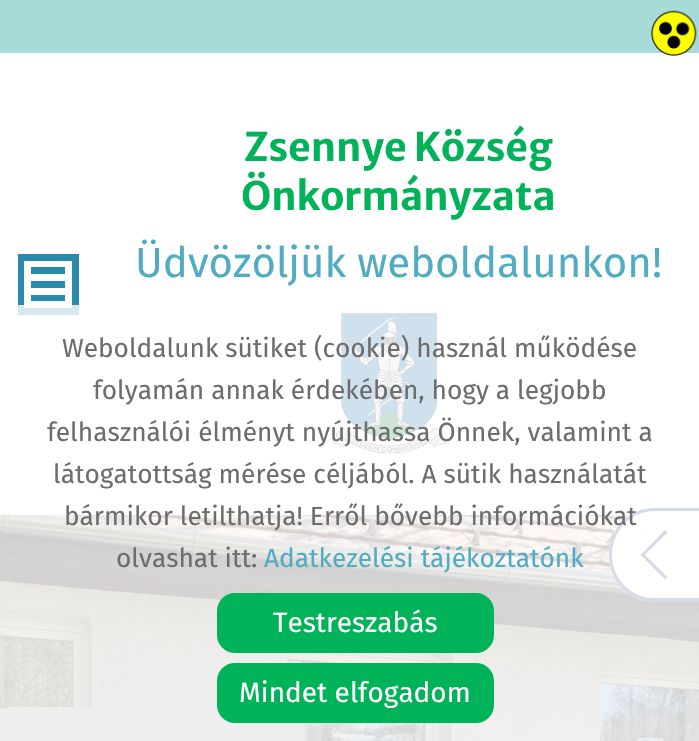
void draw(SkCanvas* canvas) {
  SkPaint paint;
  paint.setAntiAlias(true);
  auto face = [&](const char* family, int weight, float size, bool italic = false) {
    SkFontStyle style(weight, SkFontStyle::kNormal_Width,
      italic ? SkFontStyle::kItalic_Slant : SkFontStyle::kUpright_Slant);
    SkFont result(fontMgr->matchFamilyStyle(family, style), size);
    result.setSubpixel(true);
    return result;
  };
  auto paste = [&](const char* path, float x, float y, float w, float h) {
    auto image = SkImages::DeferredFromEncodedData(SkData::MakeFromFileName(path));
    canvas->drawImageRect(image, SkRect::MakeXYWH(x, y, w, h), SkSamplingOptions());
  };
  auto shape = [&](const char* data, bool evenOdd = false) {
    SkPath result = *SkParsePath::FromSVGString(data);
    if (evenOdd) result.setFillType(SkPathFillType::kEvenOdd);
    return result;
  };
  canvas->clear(0xffffffff);
  paint.setColor(0xffa7dbd8);
  canvas->drawRect(SkRect::MakeXYWH(0, 0, 699, 53), paint);
  paste("img/1.png", 651, 10, 46, 46);
  paint.setColor(0xff298aaa);
  canvas->drawPath(shape("M31 281V288H65V281ZM31 295V301H65V295ZM31 267V274H65V267ZM18 254H79V315H18ZM72 308V261H24V308Z"), paint);
  paste("img/2.png", 331, 313, 117, 141);
  paste("img/3.png", 0, 515, 699, 226);
  paint.setColor(0xffffffff);
  canvas->drawPath(shape("M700 602H654C629 602 609 581 609 555C609 529 629 508 654 508H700Z"), paint);
  paint.setColor(0xff2a3d7c);
  canvas->drawPath(shape("M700 602H654C629 602 609 581 609 555C609 529 629 508 654 508H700ZM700 598H654C631 598 612 579 612 555C612 531 631 511 654 511H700Z", true), paint);
  canvas->drawPath(shape("M665 579.5L640.5 555L642.5 552.5L667.5 577Z"), paint);
  canvas->drawPath(shape("M642.5 557L640.5 555L665 530L667.5 532.5Z"), paint);
  paint.setColor(0xffa5a5a5);
  canvas->drawPath(shape("M11 707H294C300 707 305 712 305 718V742H0V718C0 712 5 707 11 707Z"), paint);
  paint.setColor(0xcfffffff);
  canvas->drawRect(SkRect::MakeXYWH(0, 305, 699, 436), paint);
  paint.setColor(0xff00b359);
  canvas->drawRoundRect(SkRect::MakeXYWH(217, 593, 277, 60), 18, 18, paint);
  canvas->drawRoundRect(SkRect::MakeXYWH(217, 663, 277, 60), 18, 18, paint);
  auto f0 = face("Merriweather Sans", 700, 39.25f);
  canvas->drawString("Zsennye Község", 244, 161, f0, paint);
  canvas->drawString("Önkormányzata", 241, 210, f0, paint);
  auto f1 = face("Fira Sans", 400, 42);
  paint.setColor(0xff51acc2);
  canvas->drawString("Üdvözöljük weboldalunkon!", 135, 277, f1, paint);
  auto f2 = face("Fira Sans", 400, 26.25f);
  paint.setColor(0xff6d6d6d);
  {
    const struct { const char* s; float x, y; } items[] = {
      {"Weboldalunk sütiket (cookie) használ működése", 62, 357},
      {"folyamán annak érdekében, hogy a legjobb", 93, 399},
      {"felhasználói élményt nyújthassa Önnek, valamint a", 47, 441},
      {"látogatottság mérése céljából. A sütik használatát", 53, 483},
      {"bármikor letilthatja! Erről bővebb információkat", 64, 525},
      {"olvashat itt:", 116, 567},
    };
    for (auto [s, x, y] : items) {
      canvas->drawString(s, x, y, f2, paint);
    }
  }
  paint.setColor(0xff51acc2);
  canvas->drawString("Adatkezelési tájékoztatónk", 264, 567, f2, paint);
  auto f3 = face("Fira Sans", 400, 28);
  paint.setColor(0xffffffff);
  canvas->drawString("Testreszabás", 273, 632, f3, paint);
  canvas->drawString("Mindet elfogadom", 239, 702, f3, paint);
}
